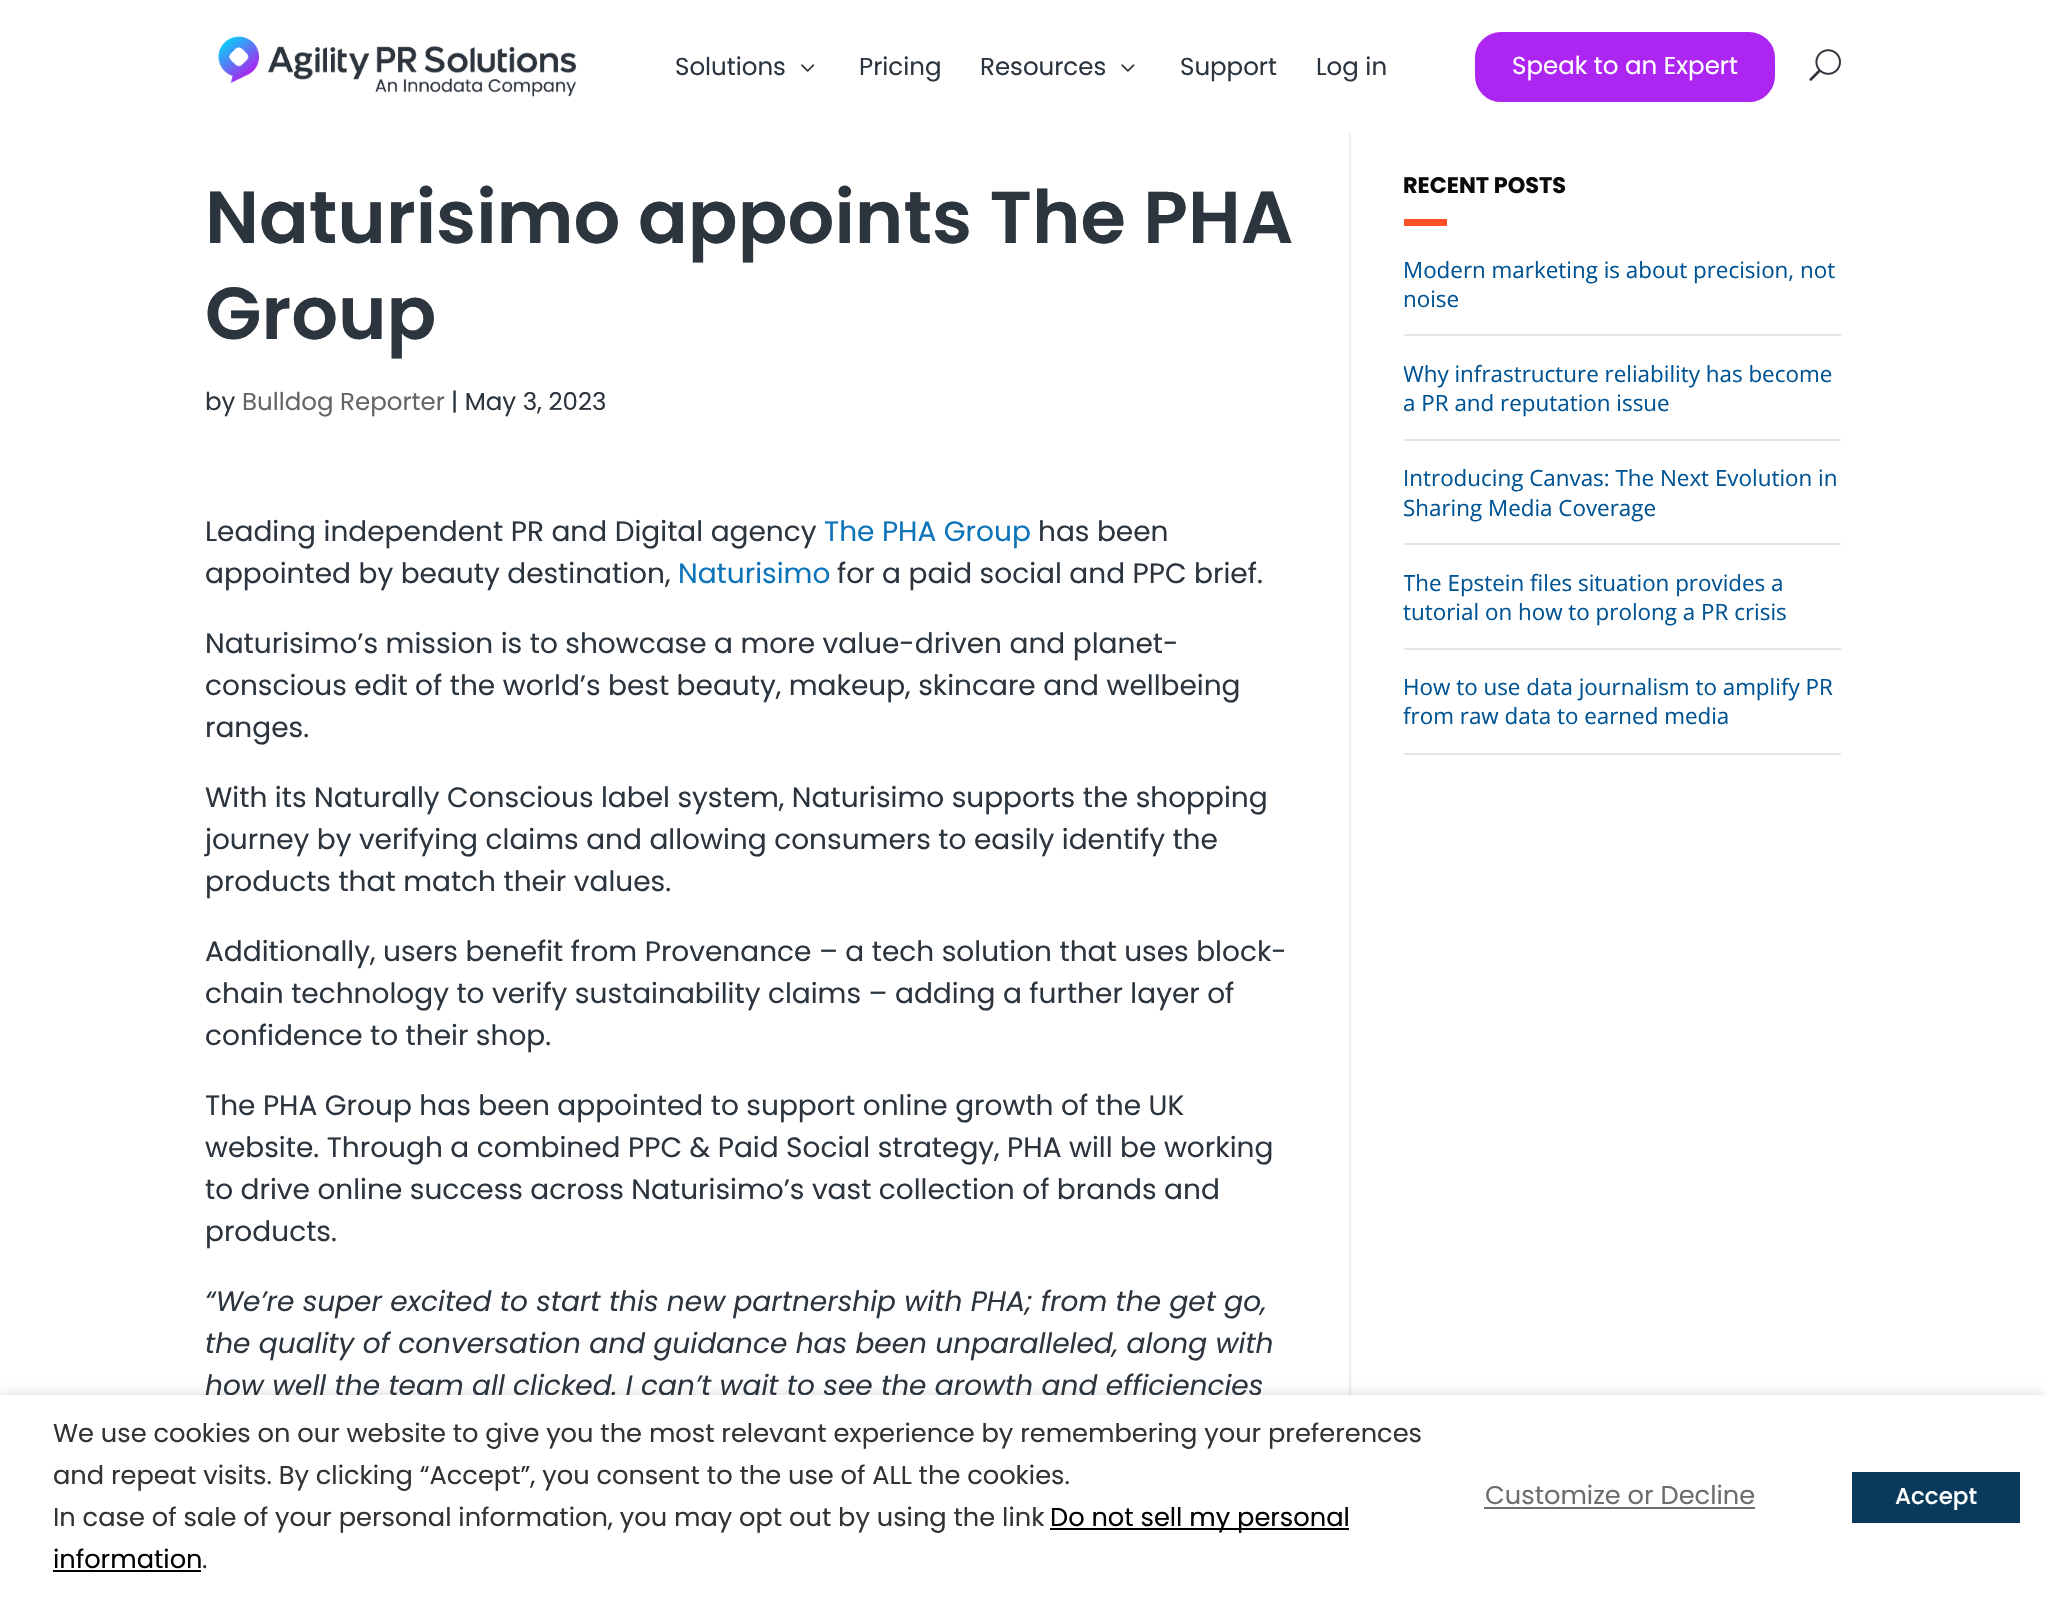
void draw(SkCanvas* canvas) {
  SkPaint paint;
  paint.setAntiAlias(true);
  auto face = [&](const char* family, int weight, float size, bool italic = false) {
    SkFontStyle style(weight, SkFontStyle::kNormal_Width,
      italic ? SkFontStyle::kItalic_Slant : SkFontStyle::kUpright_Slant);
    SkFont result(fontMgr->matchFamilyStyle(family, style), size);
    result.setSubpixel(true);
    return result;
  };
  auto paste = [&](const char* path, float x, float y, float w, float h) {
    auto image = SkImages::DeferredFromEncodedData(SkData::MakeFromFileName(path));
    canvas->drawImageRect(image, SkRect::MakeXYWH(x, y, w, h), SkSamplingOptions());
  };
  canvas->clear(0xffffffff);
  paste("img/1.png", 218, 36, 359, 61);
  paste("img/2.png", 801, 64, 14, 8);
  paste("img/3.png", 1121, 64, 14, 8);
  paint.setColor(0xffad25f0);
  canvas->drawRoundRect(SkRect::MakeXYWH(1476, 33, 298, 68), 25, 25, paint);
  paint.setStroke(true);
  paint.setStrokeWidth(2);
  canvas->drawRoundRect(SkRect::MakeXYWH(1476, 33, 298, 68), 25, 25, paint);
  paste("img/4.png", 1809, 49, 32, 32);
  paint.setStroke(false);
  {
    const struct { float x, y, w, h; SkColor color; } items[] = {
      {1349, 133, 2, 1262, 0xffeeeeee},
      {1404, 219, 43, 7, 0xffff5126},
      {1404, 334, 437, 2, 0xffe5e5e5},
      {1404, 439, 437, 2, 0xffe5e5e5},
      {1404, 543, 437, 2, 0xffe5e5e5},
      {1404, 648, 437, 2, 0xffe5e5e5},
      {1404, 753, 437, 2, 0xffe5e5e5},
    };
    for (auto [x, y, w, h, color] : items) {
      paint.setColor(color);
      canvas->drawRect(SkRect::MakeXYWH(x, y, w, h), paint);
    }
  }
  paint.setColor(0x80000000);
  paint.setMaskFilter(SkMaskFilter::MakeBlur(kNormal_SkBlurStyle, 9));
  canvas->drawRect(SkRect::MakeXYWH(0, 1404, 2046, 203), paint);
  paint.setMaskFilter(nullptr);
  auto f0 = face("Poppins", 400, 24.5f);
  paint.setColor(0xff2c353e);
  {
    const struct { const char* s; float x, y; } items[] = {
      {"Solutions", 675, 75},
      {"Pricing", 859, 75},
      {"Resources", 980, 75},
      {"Support", 1180, 75},
      {"Log in", 1316, 75},
    };
    for (auto [s, x, y] : items) {
      canvas->drawString(s, x, y, f0, paint);
    }
  }
  paint.setColor(0xffffffff);
  canvas->drawString("Speak to an Expert", 1512, 74, f0, paint);
  auto f1 = face("Poppins", 600, 73.5f);
  paint.setColor(0xff2c353e);
  canvas->drawString("Naturisimo appoints The PHA", 205, 243, f1, paint);
  canvas->drawString("Group", 205, 339, f1, paint);
  canvas->drawString("by", 205, 410, f0, paint);
  paint.setColor(0xff666666);
  canvas->drawString("Bulldog Reporter", 242, 410, f0, paint);
  paint.setColor(0xff2c353e);
  canvas->drawString("| May 3, 2023", 451, 410, f0, paint);
  auto f2 = face("Poppins", 400, 28);
  canvas->drawString("Leading independent PR and Digital agency", 205, 541, f2, paint);
  paint.setColor(0xff0d74ba);
  canvas->drawString("The PHA Group", 824, 541, f2, paint);
  paint.setColor(0xff2c353e);
  canvas->drawString("has been", 1038, 541, f2, paint);
  canvas->drawString("appointed by beauty destination,", 205, 583, f2, paint);
  paint.setColor(0xff0d74ba);
  canvas->drawString("Naturisimo", 678, 583, f2, paint);
  paint.setColor(0xff2c353e);
  {
    const struct { const char* s; float x, y; } items[] = {
      {"for a paid social and PPC brief.", 837, 583},
      {"Naturisimo’s mission is to showcase a more value-driven and planet-", 205, 653},
      {"conscious edit of the world’s best beauty, makeup, skincare and wellbeing", 205, 695},
      {"ranges.", 205, 737},
      {"With its Naturally Conscious label system, Naturisimo supports the shopping", 205, 807},
      {"journey by verifying claims and allowing consumers to easily identify the", 205, 849},
      {"products that match their values.", 205, 891},
      {"Additionally, users benefit from Provenance – a tech solution that uses block-", 205, 961},
      {"chain technology to verify sustainability claims – adding a further layer of", 205, 1003},
      {"confidence to their shop.", 205, 1045},
      {"The PHA Group has been appointed to support online growth of the UK", 205, 1115},
      {"website. Through a combined PPC & Paid Social strategy, PHA will be working", 205, 1157},
      {"to drive online success across Naturisimo’s vast collection of brands and", 205, 1199},
      {"products.", 205, 1241},
    };
    for (auto [s, x, y] : items) {
      canvas->drawString(s, x, y, f2, paint);
    }
  }
  auto f3 = face("Poppins", 400, 28, true);
  {
    const struct { const char* s; float x, y; } items[] = {
      {"“We’re super excited to start this new partnership with PHA; from the get go,", 205, 1311},
      {"the quality of conversation and guidance has been unparalleled, along with", 205, 1353},
      {"how well the team all clicked. I can’t wait to see the growth and efficiencies", 205, 1395},
    };
    for (auto [s, x, y] : items) {
      canvas->drawString(s, x, y, f3, paint);
    }
  }
  auto f4 = face("Poppins", 700, 22.4f);
  paint.setColor(0xff0a0a0a);
  canvas->drawString("RECENT POSTS", 1403, 193, f4, paint);
  auto f5 = face("Open Sans", 400, 22.4f);
  paint.setColor(0xff005494);
  canvas->drawString("Modern marketing is about precision, not", 1403, 278, f5, paint);
  canvas->drawString("noise", 1403, 307, f5, paint);
  canvas->save();
  canvas->clipRect(SkRect::MakeXYWH(1404, 347, 437, 92));
  canvas->drawString("Why infrastructure reliability has become", 1403, 382, f5, paint);
  canvas->drawString("a PR and reputation issue", 1403, 411, f5, paint);
  canvas->restore();
  canvas->drawString("Introducing Canvas: The Next Evolution in", 1403, 486, f5, paint);
  canvas->drawString("Sharing Media Coverage", 1403, 516, f5, paint);
  canvas->save();
  canvas->clipRect(SkRect::MakeXYWH(1404, 557, 437, 91));
  canvas->drawString("The Epstein files situation provides a", 1403, 591, f5, paint);
  canvas->restore();
  {
    const struct { const char* s; float x, y; } items[] = {
      {"tutorial on how to prolong a PR crisis", 1403, 620},
      {"How to use data journalism to amplify PR", 1403, 695},
      {"from raw data to earned media", 1403, 724},
    };
    for (auto [s, x, y] : items) {
      canvas->drawString(s, x, y, f5, paint);
    }
  }
  paint.setColor(0xffffffff);
  canvas->drawRect(SkRect::MakeXYWH(0, 1395, 2045, 202), paint);
  auto f6 = face("Poppins", 400, 25.67f);
  paint.setColor(0xff333333);
  {
    const struct { const char* s; float x, y; } items[] = {
      {"We use cookies on our website to give you the most relevant experience by remembering your preferences", 53, 1442},
      {"and repeat visits. By clicking “Accept”, you consent to the use of ALL the cookies.", 53, 1484},
      {"In case of sale of your personal information, you may opt out by using the link", 53, 1526},
    };
    for (auto [s, x, y] : items) {
      canvas->drawString(s, x, y, f6, paint);
    }
  }
  paint.setColor(0xff000000);
  canvas->drawRect(SkRect::MakeXYWH(1050, 1528, 299, 2), paint);
  canvas->drawString("Do not sell my personal", 1050, 1526, f6, paint);
  canvas->drawString("information", 53, 1568, f6, paint);
  canvas->drawRect(SkRect::MakeXYWH(53, 1570, 148, 2), paint);
  paint.setColor(0xff333333);
  canvas->drawString(".", 202, 1568, f6, paint);
  paint.setColor(0xff6d6d6d);
  canvas->drawString("Customize or Decline", 1485, 1504, f6, paint);
  canvas->drawRect(SkRect::MakeXYWH(1484, 1507, 271, 2), paint);
  paint.setColor(0xff0a3a5b);
  canvas->drawRect(SkRect::MakeXYWH(1852, 1472, 168, 51), paint);
  auto f7 = face("Poppins", 500, 23);
  paint.setColor(0xffffffff);
  canvas->drawString("Accept", 1895, 1504, f7, paint);
}
